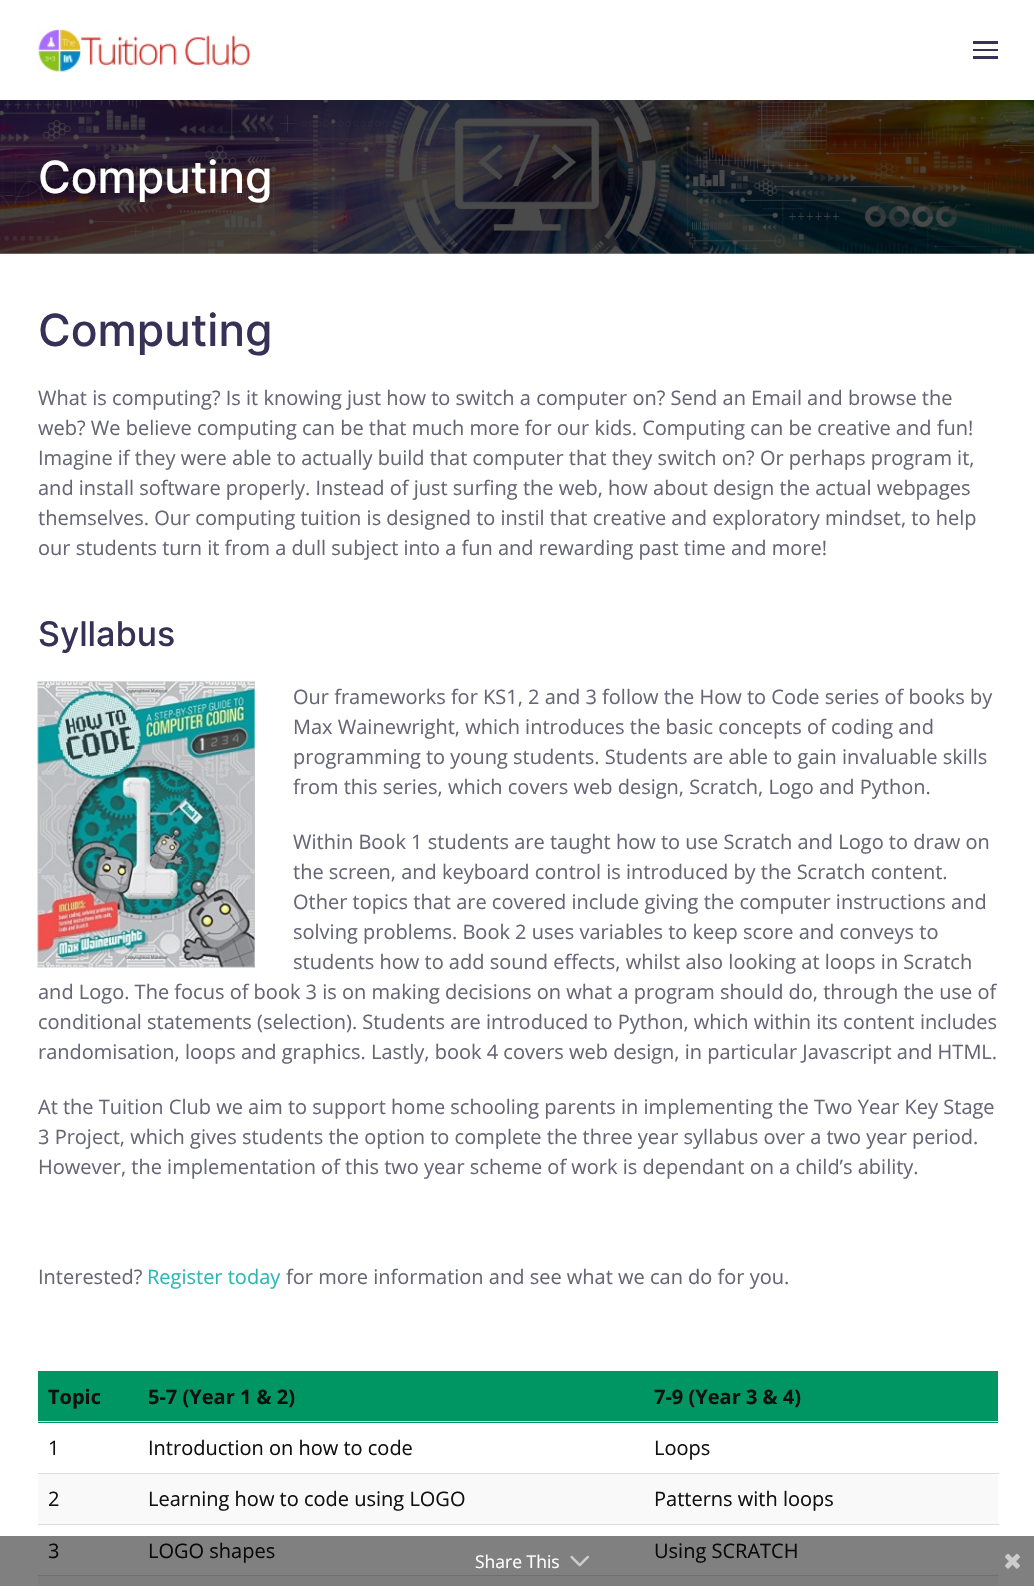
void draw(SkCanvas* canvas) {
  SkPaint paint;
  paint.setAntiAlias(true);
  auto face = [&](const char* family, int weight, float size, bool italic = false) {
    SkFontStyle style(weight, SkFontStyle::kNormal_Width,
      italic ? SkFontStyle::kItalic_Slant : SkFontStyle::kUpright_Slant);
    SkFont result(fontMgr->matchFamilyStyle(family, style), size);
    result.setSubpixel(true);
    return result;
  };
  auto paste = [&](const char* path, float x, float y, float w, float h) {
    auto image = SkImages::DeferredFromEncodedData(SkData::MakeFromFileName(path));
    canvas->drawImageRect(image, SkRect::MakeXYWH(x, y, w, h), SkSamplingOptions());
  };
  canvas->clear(0xffffffff);
  paint.setColor(0xff808080);
  canvas->drawRect(SkRect::MakeXYWH(0, 1536, 1034, 50), paint);
  paste("img/1.png", 38, 29, 213, 43);
  {
    const struct { float x, y, w, h; SkColor color; } items[] = {
      {973, 41, 25, 3, 0xff373157},
      {973, 49, 25, 2, 0xff373157},
      {973, 56, 25, 3, 0xff373157},
    };
    for (auto [x, y, w, h, color] : items) {
      paint.setColor(color);
      canvas->drawRect(SkRect::MakeXYWH(x, y, w, h), paint);
    }
  }
  paste("img/2.png", 0, 100, 1034, 154);
  paste("img/3.png", 37, 681, 218, 287);
  {
    const struct { float x, y, w, h; SkColor color; } items[] = {
      {38, 1371, 960, 52, 0xff009664},
      {38, 1421, 961, 1, 0xffdddddd},
      {38, 1474, 960, 50, 0xfff9f9f9},
      {38, 1473, 961, 1, 0xffdddddd},
      {38, 1524, 961, 1, 0xffdddddd},
      {38, 1575, 961, 1, 0xff6f6f6f},
      {38, 1576, 960, 10, 0xff7d7d7d},
    };
    for (auto [x, y, w, h, color] : items) {
      paint.setColor(color);
      canvas->drawRect(SkRect::MakeXYWH(x, y, w, h), paint);
    }
  }
  paste("img/4.png", 570, 1555, 19, 12);
  paste("img/5.png", 1005, 1553, 15, 16);
  auto f0 = face("Inter", 500, 44.5f);
  paint.setColor(0xffffffff);
  canvas->drawString("Computing", 38, 193, f0, paint);
  paint.setColor(0xff373157);
  canvas->drawString("Computing", 38, 346, f0, paint);
  auto f1 = face("Open Sans", 400, 20);
  paint.setColor(0xff666677);
  {
    const struct { const char* s; float x, y; } items[] = {
      {"What is computing? Is it knowing just how to switch a computer on? Send an Email and browse the", 38, 405},
      {"web? We believe computing can be that much more for our kids. Computing can be creative and fun!", 38, 435},
      {"Imagine if they were able to actually build that computer that they switch on? Or perhaps program it,", 38, 465},
      {"and install software properly. Instead of just surfing the web, how about design the actual webpages", 38, 495},
      {"themselves. Our computing tuition is designed to instil that creative and exploratory mindset, to help", 38, 525},
      {"our students turn it from a dull subject into a fun and rewarding past time and more!", 38, 555},
    };
    for (auto [s, x, y] : items) {
      canvas->drawString(s, x, y, f1, paint);
    }
  }
  auto f2 = face("Inter", 500, 34);
  paint.setColor(0xff373157);
  canvas->drawString("Syllabus", 38, 646, f2, paint);
  paint.setColor(0xff666677);
  {
    const struct { const char* s; float x, y; } items[] = {
      {"Our frameworks for KS1, 2 and 3 follow the How to Code series of books by", 293, 704},
      {"Max Wainewright, which introduces the basic concepts of coding and", 293, 734},
      {"programming to young students. Students are able to gain invaluable skills", 293, 764},
      {"from this series, which covers web design, Scratch, Logo and Python.", 293, 794},
      {"Within Book 1 students are taught how to use Scratch and Logo to draw on", 293, 849},
      {"the screen, and keyboard control is introduced by the Scratch content.", 293, 879},
      {"Other topics that are covered include giving the computer instructions and", 293, 909},
      {"solving problems. Book 2 uses variables to keep score and conveys to", 293, 939},
      {"students how to add sound effects, whilst also looking at loops in Scratch", 293, 969},
      {"and Logo. The focus of book 3 is on making decisions on what a program should do, through the use of", 38, 999},
      {"conditional statements (selection). Students are introduced to Python, which within its content includes", 38, 1029},
      {"randomisation, loops and graphics. Lastly, book 4 covers web design, in particular Javascript and HTML.", 38, 1059},
      {"At the Tuition Club we aim to support home schooling parents in implementing the Two Year Key Stage", 38, 1114},
      {"3 Project, which gives students the option to complete the three year syllabus over a two year period.", 38, 1144},
      {"However, the implementation of this two year scheme of work is dependant on a child’s ability.", 38, 1174},
      {"Interested?", 38, 1284},
    };
    for (auto [s, x, y] : items) {
      canvas->drawString(s, x, y, f1, paint);
    }
  }
  paint.setColor(0xff28b9b3);
  canvas->drawString("Register today", 147, 1284, f1, paint);
  paint.setColor(0xff666677);
  canvas->drawString("for more information and see what we can do for you.", 286, 1284, f1, paint);
  auto f3 = face("Open Sans", 700, 20);
  paint.setColor(0xff111111);
  {
    const struct { const char* s; float x, y; } items[] = {
      {"Topic", 48, 1404},
      {"5-7 (Year 1 & 2)", 148, 1404},
      {"7-9 (Year 3 & 4)", 654, 1404},
    };
    for (auto [s, x, y] : items) {
      canvas->drawString(s, x, y, f3, paint);
    }
  }
  {
    const struct { const char* s; float x, y; } items[] = {
      {"1", 48, 1455},
      {"Introduction on how to code", 148, 1455},
      {"Loops", 654, 1455},
      {"2", 48, 1506},
      {"Learning how to code using LOGO", 148, 1506},
      {"Patterns with loops", 654, 1506},
    };
    for (auto [s, x, y] : items) {
      canvas->drawString(s, x, y, f1, paint);
    }
  }
  paint.setColor(0xff090909);
  {
    const struct { const char* s; float x, y; } items[] = {
      {"3", 48, 1558},
      {"LOGO shapes", 148, 1558},
      {"Using SCRATCH", 654, 1558},
    };
    for (auto [s, x, y] : items) {
      canvas->drawString(s, x, y, f1, paint);
    }
  }
  auto f4 = face("Open Sans", 400, 17.5f);
  paint.setColor(0xffffffff);
  canvas->drawString("Share This", 475, 1568, f4, paint);
}
